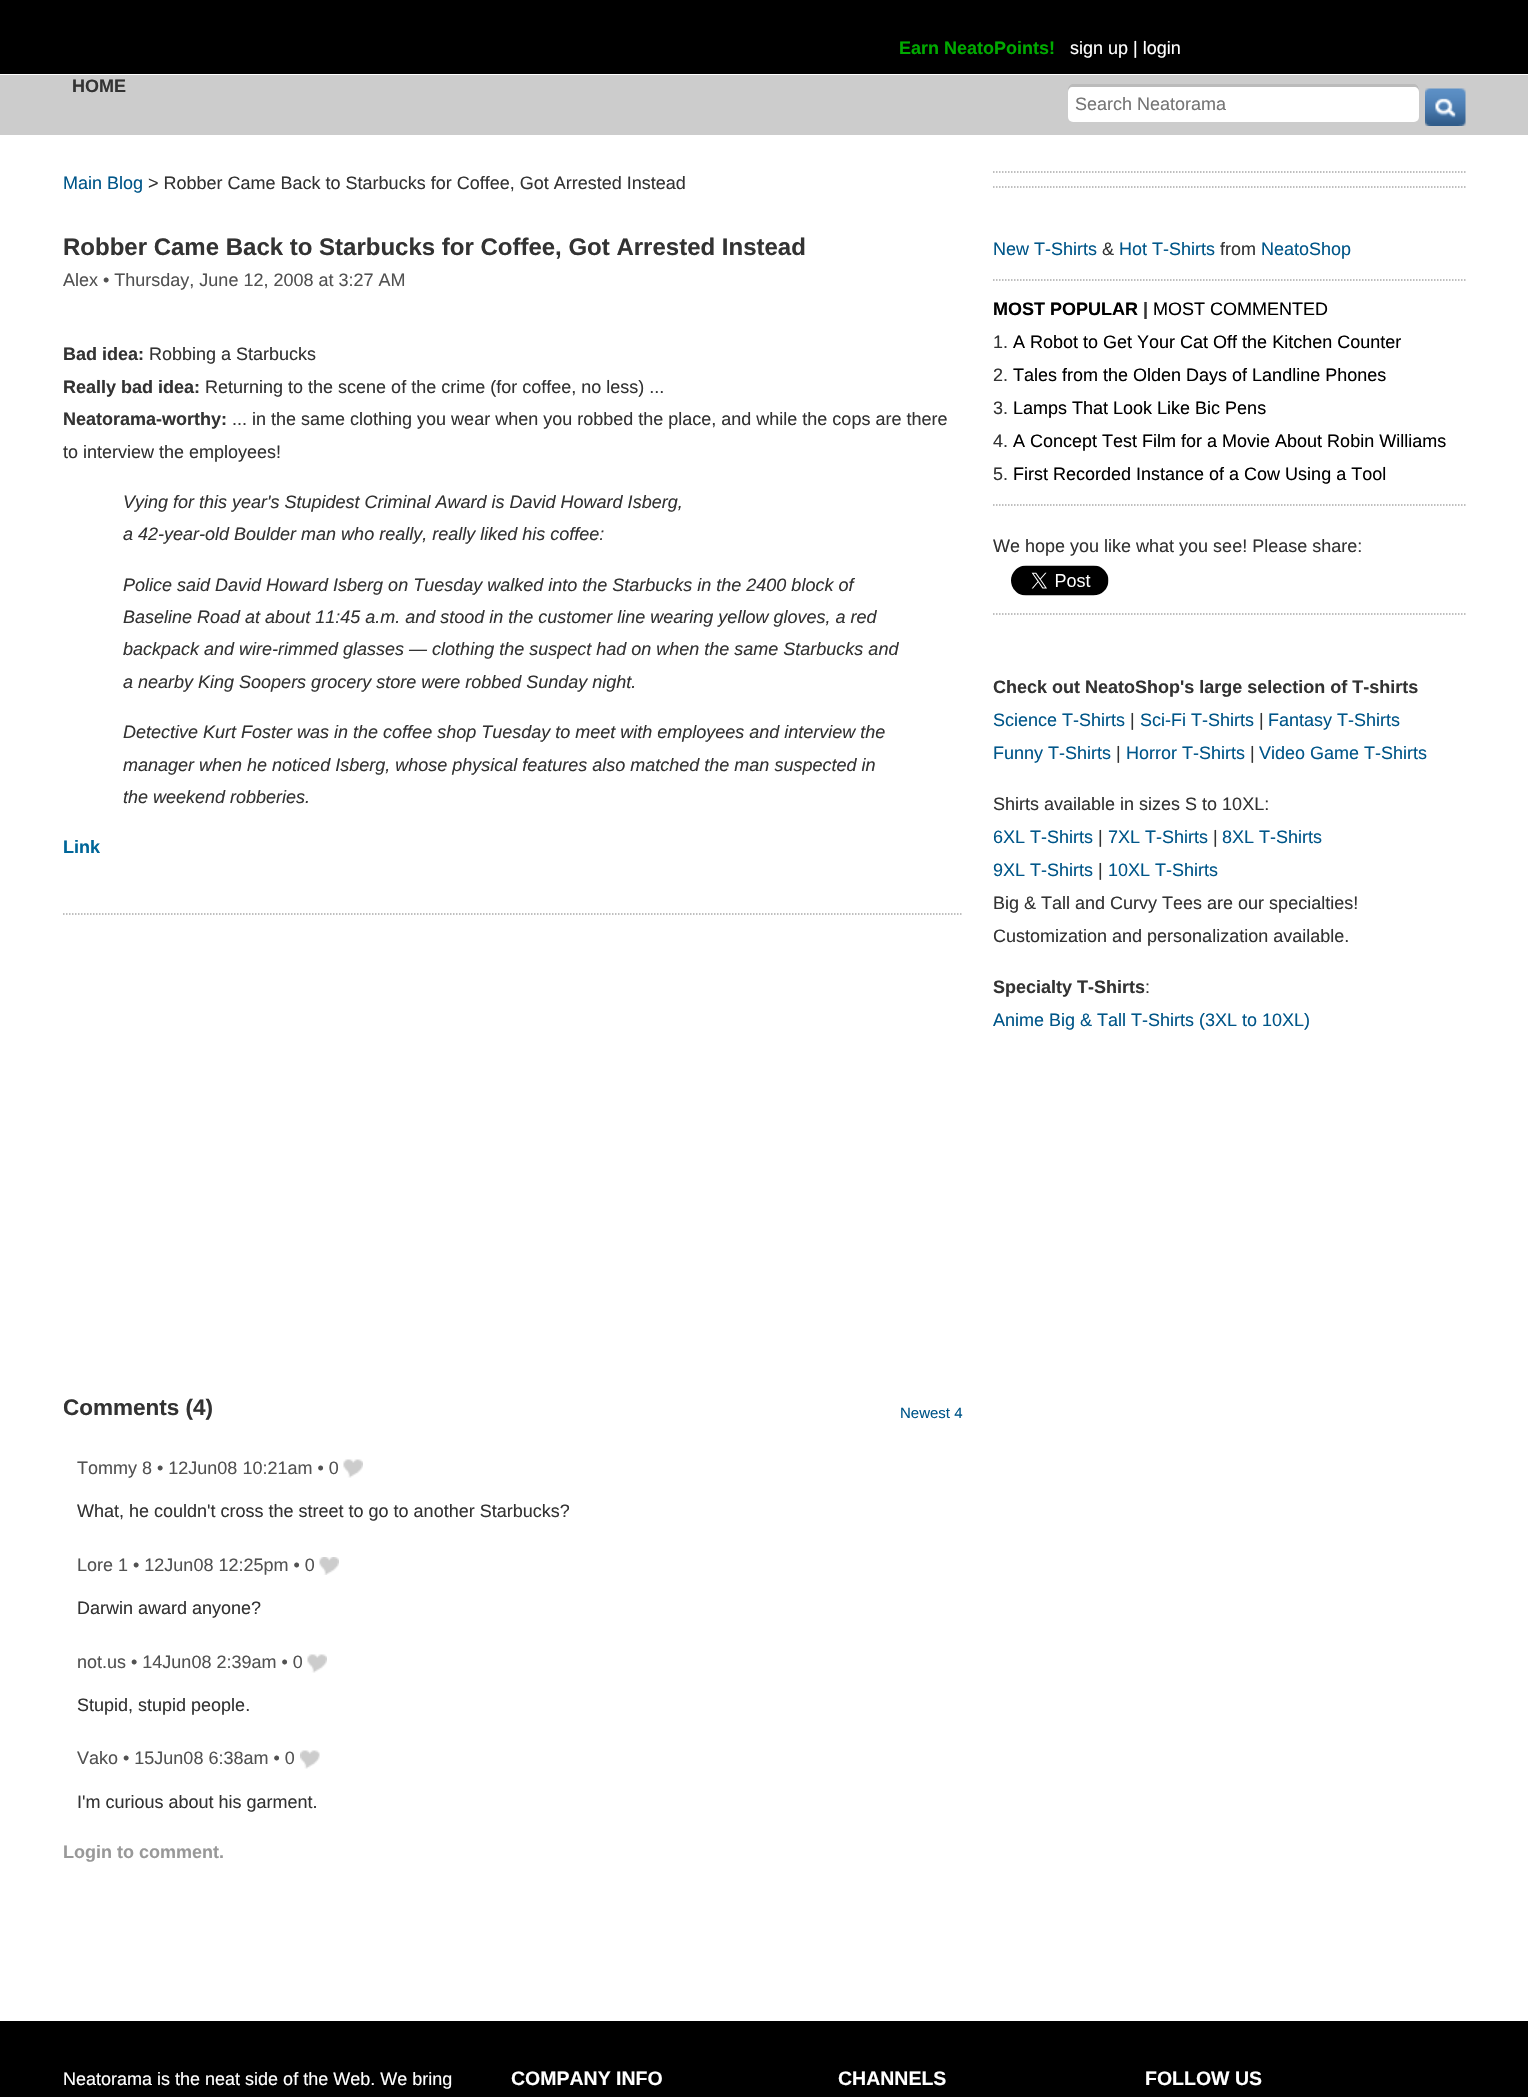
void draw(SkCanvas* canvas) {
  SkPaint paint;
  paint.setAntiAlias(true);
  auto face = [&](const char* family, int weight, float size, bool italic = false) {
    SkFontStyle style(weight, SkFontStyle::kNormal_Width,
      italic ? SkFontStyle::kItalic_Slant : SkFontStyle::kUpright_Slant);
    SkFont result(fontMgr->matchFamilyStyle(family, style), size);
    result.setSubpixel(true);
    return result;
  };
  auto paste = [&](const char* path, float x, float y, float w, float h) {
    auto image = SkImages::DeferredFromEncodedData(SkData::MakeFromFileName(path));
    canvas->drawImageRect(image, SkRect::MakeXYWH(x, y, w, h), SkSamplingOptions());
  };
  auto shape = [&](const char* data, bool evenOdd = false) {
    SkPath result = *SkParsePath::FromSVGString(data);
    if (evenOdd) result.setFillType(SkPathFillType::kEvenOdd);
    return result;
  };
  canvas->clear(0xffffffff);
  paint.setColor(0xff000000);
  canvas->drawRect(SkRect::MakeXYWH(0, 0, 1528, 74), paint);
  paint.setColor(0xffcccccc);
  canvas->drawRect(SkRect::MakeXYWH(0, 75, 1528, 60), paint);
  paint.setColor(0xffffffff);
  canvas->drawRoundRect(SkRect::MakeXYWH(1068, 84, 351, 38), 5, 5, paint);
  paint.setColor(0xffbbbbbb);
  canvas->drawPath(shape("M1072 87H1414C1417 87 1419 89 1419 92V89C1419 86 1417 84 1414 84H1073C1070 84 1068 86 1068 89V92C1068 89 1070 87 1072 87Z"), paint);
  paste("img/1.png", 1425, 88, 41, 38);
  paint.setStroke(true);
  paint.setStrokeWidth(1.5f);
  paint.setColor(0xffaaaaaa);
  paint.setPathEffect(SkDashPathEffect::Make({{1.5f, 1.5f}}, 0));
  canvas->drawPath(shape("M63 914H963"), paint);
  paint.setPathEffect(nullptr);
  paste("img/2.png", 343, 1459, 20, 19);
  paste("img/3.png", 319, 1557, 20, 18);
  paste("img/2.png", 307, 1654, 20, 19);
  paste("img/4.png", 300, 1750, 20, 19);
  paint.setPathEffect(SkDashPathEffect::Make({{1.5f, 1.5f}}, 0));
  canvas->drawPath(shape("M993 172H1465.5"), paint);
  paint.setPathEffect(nullptr);
  paint.setPathEffect(SkDashPathEffect::Make({{1.5f, 1.5f}}, 0));
  canvas->drawPath(shape("M993 187H1465.5"), paint);
  paint.setPathEffect(nullptr);
  paint.setPathEffect(SkDashPathEffect::Make({{1.5f, 1.5f}}, 0));
  canvas->drawPath(shape("M993 280H1465.5"), paint);
  paint.setPathEffect(nullptr);
  paint.setPathEffect(SkDashPathEffect::Make({{1.5f, 1.5f}}, 0));
  canvas->drawPath(shape("M993 505H1465.5"), paint);
  paint.setPathEffect(nullptr);
  paste("img/5.png", 1011, 565, 98, 31);
  paint.setPathEffect(SkDashPathEffect::Make({{1.5f, 1.5f}}, 0));
  canvas->drawPath(shape("M993 614H1465.5"), paint);
  paint.setPathEffect(nullptr);
  paint.setStroke(false);
  paint.setColor(0xff000000);
  canvas->drawRect(SkRect::MakeXYWH(0, 2021, 1528, 76), paint);
  auto f0 = face("Liberation Sans", 700, 18);
  paint.setColor(0xff00aa00);
  canvas->drawString("Earn NeatoPoints!", 899, 54, f0, paint);
  auto f1 = face("Liberation Sans", 400, 18);
  paint.setColor(0xffffffff);
  canvas->drawString("sign up | login", 1070, 54, f1, paint);
  paint.setColor(0xff333333);
  canvas->drawString("HOME", 72, 92, f0, paint);
  paint.setColor(0xff757575);
  canvas->drawString("Search Neatorama", 1075, 110, f1, paint);
  paint.setColor(0xff005689);
  canvas->drawString("Main Blog", 63, 189, f1, paint);
  paint.setColor(0xff333333);
  canvas->drawString("> Robber Came Back to Starbucks for Coffee, Got Arrested Instead", 148, 189, f1, paint);
  auto f2 = face("Liberation Sans", 700, 24);
  canvas->drawString("Robber Came Back to Starbucks for Coffee, Got Arrested Instead", 63, 255, f2, paint);
  paint.setColor(0xff525252);
  canvas->drawString("Alex • Thursday, June 12, 2008 at 3:27 AM", 63, 286, f1, paint);
  paint.setColor(0xff333333);
  canvas->drawString("Bad idea:", 63, 360, f0, paint);
  canvas->drawString("Robbing a Starbucks", 149, 360, f1, paint);
  canvas->drawString("Really bad idea:", 63, 393, f0, paint);
  canvas->drawString("Returning to the scene of the crime (for coffee, no less) ...", 205, 393, f1, paint);
  canvas->drawString("Neatorama-worthy:", 63, 425, f0, paint);
  canvas->drawString("... in the same clothing you wear when you robbed the place, and while the cops are there", 232, 425, f1, paint);
  canvas->drawString("to interview the employees!", 63, 458, f1, paint);
  auto f3 = face("Liberation Sans", 400, 18, true);
  {
    const struct { const char* s; float x, y; } items[] = {
      {"Vying for this year's Stupidest Criminal Award is David Howard Isberg,", 123, 508},
      {"a 42-year-old Boulder man who really, really liked his coffee:", 123, 540},
      {"Police said David Howard Isberg on Tuesday walked into the Starbucks in the 2400 block of", 123, 591},
      {"Baseline Road at about 11:45 a.m. and stood in the customer line wearing yellow gloves, a red", 123, 623},
      {"backpack and wire-rimmed glasses — clothing the suspect had on when the same Starbucks and", 123, 655},
      {"a nearby King Soopers grocery store were robbed Sunday night.", 123, 688},
      {"Detective Kurt Foster was in the coffee shop Tuesday to meet with employees and interview the", 123, 738},
      {"manager when he noticed Isberg, whose physical features also matched the man suspected in", 123, 771},
      {"the weekend robberies.", 123, 803},
    };
    for (auto [s, x, y] : items) {
      canvas->drawString(s, x, y, f3, paint);
    }
  }
  paint.setColor(0xff006699);
  canvas->drawString("Link", 63, 853, f0, paint);
  auto f4 = face("Liberation Sans", 700, 22.5f);
  paint.setColor(0xff333333);
  canvas->drawString("Comments (4)", 63, 1415, f4, paint);
  auto f5 = face("Liberation Sans", 400, 15);
  paint.setColor(0xff005689);
  canvas->drawString("Newest 4", 900, 1418, f5, paint);
  paint.setColor(0xff525252);
  canvas->drawString("Tommy 8 • 12Jun08 10:21am • 0", 77, 1474, f1, paint);
  paint.setColor(0xff333333);
  canvas->drawString("What, he couldn't cross the street to go to another Starbucks?", 77, 1517, f1, paint);
  paint.setColor(0xff525252);
  canvas->drawString("Lore 1 • 12Jun08 12:25pm • 0", 77, 1571, f1, paint);
  paint.setColor(0xff333333);
  canvas->drawString("Darwin award anyone?", 77, 1614, f1, paint);
  paint.setColor(0xff525252);
  canvas->drawString("not.us • 14Jun08 2:39am • 0", 77, 1668, f1, paint);
  paint.setColor(0xff333333);
  canvas->drawString("Stupid, stupid people.", 77, 1711, f1, paint);
  paint.setColor(0xff525252);
  canvas->drawString("Vako • 15Jun08 6:38am • 0", 77, 1764, f1, paint);
  paint.setColor(0xff333333);
  canvas->drawString("I'm curious about his garment.", 77, 1808, f1, paint);
  paint.setColor(0xff999999);
  canvas->drawString("Login to comment.", 63, 1858, f0, paint);
  paint.setColor(0xff005689);
  canvas->drawString("New T-Shirts", 993, 255, f1, paint);
  paint.setColor(0xff333333);
  canvas->drawString("&", 1102, 255, f1, paint);
  paint.setColor(0xff005689);
  canvas->drawString("Hot T-Shirts", 1119, 255, f1, paint);
  paint.setColor(0xff333333);
  canvas->drawString("from", 1220, 255, f1, paint);
  paint.setColor(0xff005689);
  canvas->drawString("NeatoShop", 1261, 255, f1, paint);
  paint.setColor(0xff000000);
  canvas->drawString("MOST POPULAR", 993, 315, f0, paint);
  paint.setColor(0xff333333);
  canvas->drawString("|", 1143, 315, f0, paint);
  paint.setColor(0xff000000);
  canvas->drawString("MOST COMMENTED", 1153, 315, f1, paint);
  paint.setColor(0xff333333);
  canvas->drawString("1.", 993, 348, f1, paint);
  paint.setColor(0xff000000);
  canvas->drawString("A Robot to Get Your Cat Off the Kitchen Counter", 1013, 348, f1, paint);
  paint.setColor(0xff333333);
  canvas->drawString("2.", 993, 381, f1, paint);
  paint.setColor(0xff000000);
  canvas->drawString("Tales from the Olden Days of Landline Phones", 1013, 381, f1, paint);
  paint.setColor(0xff333333);
  canvas->drawString("3.", 993, 414, f1, paint);
  paint.setColor(0xff000000);
  canvas->drawString("Lamps That Look Like Bic Pens", 1013, 414, f1, paint);
  paint.setColor(0xff333333);
  canvas->drawString("4.", 993, 447, f1, paint);
  paint.setColor(0xff000000);
  canvas->drawString("A Concept Test Film for a Movie About Robin Williams", 1013, 447, f1, paint);
  paint.setColor(0xff333333);
  canvas->drawString("5.", 993, 480, f1, paint);
  paint.setColor(0xff000000);
  canvas->drawString("First Recorded Instance of a Cow Using a Tool", 1013, 480, f1, paint);
  paint.setColor(0xff333333);
  canvas->drawString("We hope you like what you see! Please share:", 993, 552, f1, paint);
  canvas->drawString("Check out NeatoShop's large selection of T-shirts", 993, 693, f0, paint);
  paint.setColor(0xff005689);
  canvas->drawString("Science T-Shirts", 993, 726, f1, paint);
  paint.setColor(0xff333333);
  canvas->drawString("|", 1130, 726, f1, paint);
  paint.setColor(0xff005689);
  canvas->drawString("Sci-Fi T-Shirts", 1140, 726, f1, paint);
  paint.setColor(0xff333333);
  canvas->drawString("|", 1259, 726, f1, paint);
  paint.setColor(0xff005689);
  canvas->drawString("Fantasy T-Shirts", 1268, 726, f1, paint);
  canvas->drawString("Funny T-Shirts", 993, 759, f1, paint);
  paint.setColor(0xff333333);
  canvas->drawString("|", 1116, 759, f1, paint);
  paint.setColor(0xff005689);
  canvas->drawString("Horror T-Shirts", 1126, 759, f1, paint);
  paint.setColor(0xff333333);
  canvas->drawString("|", 1250, 759, f1, paint);
  paint.setColor(0xff005689);
  canvas->drawString("Video Game T-Shirts", 1259, 759, f1, paint);
  paint.setColor(0xff333333);
  canvas->drawString("Shirts available in sizes S to 10XL:", 993, 810, f1, paint);
  paint.setColor(0xff005689);
  canvas->drawString("6XL T-Shirts", 993, 843, f1, paint);
  paint.setColor(0xff333333);
  canvas->drawString("|", 1098, 843, f1, paint);
  paint.setColor(0xff005689);
  canvas->drawString("7XL T-Shirts", 1108, 843, f1, paint);
  paint.setColor(0xff333333);
  canvas->drawString("|", 1213, 843, f1, paint);
  paint.setColor(0xff005689);
  canvas->drawString("8XL T-Shirts", 1222, 843, f1, paint);
  canvas->drawString("9XL T-Shirts", 993, 876, f1, paint);
  paint.setColor(0xff333333);
  canvas->drawString("|", 1098, 876, f1, paint);
  paint.setColor(0xff005689);
  canvas->drawString("10XL T-Shirts", 1108, 876, f1, paint);
  paint.setColor(0xff333333);
  canvas->drawString("Big & Tall and Curvy Tees are our specialties!", 993, 909, f1, paint);
  canvas->drawString("Customization and personalization available.", 993, 942, f1, paint);
  canvas->drawString("Specialty T-Shirts", 993, 993, f0, paint);
  canvas->drawString(":", 1145, 993, f1, paint);
  paint.setColor(0xff005689);
  canvas->drawString("Anime Big & Tall T-Shirts (3XL to 10XL)", 993, 1026, f1, paint);
  paint.setColor(0xffffffff);
  canvas->drawString("Neatorama is the neat side of the Web. We bring", 63, 2085, f1, paint);
  auto f6 = face("Liberation Sans", 700, 19.5f);
  {
    const struct { const char* s; float x, y; } items[] = {
      {"COMPANY INFO", 511, 2085},
      {"CHANNELS", 838, 2085},
      {"FOLLOW US", 1145, 2085},
    };
    for (auto [s, x, y] : items) {
      canvas->drawString(s, x, y, f6, paint);
    }
  }
}
